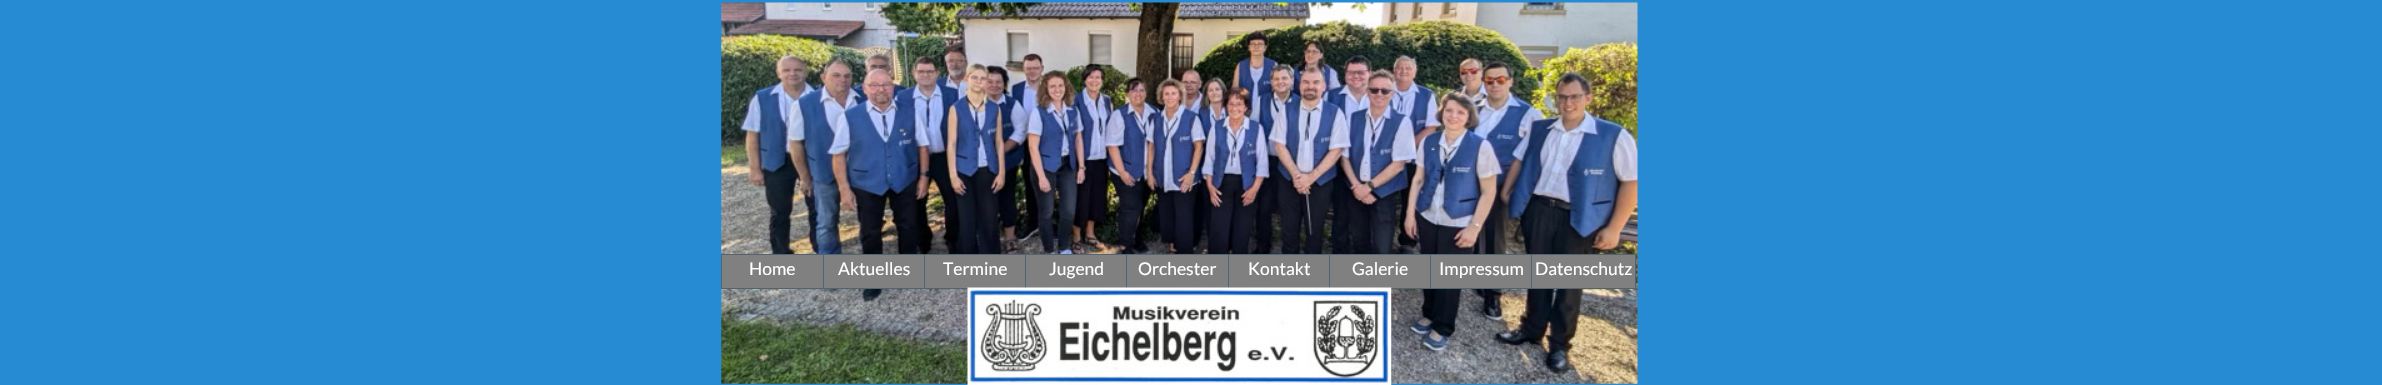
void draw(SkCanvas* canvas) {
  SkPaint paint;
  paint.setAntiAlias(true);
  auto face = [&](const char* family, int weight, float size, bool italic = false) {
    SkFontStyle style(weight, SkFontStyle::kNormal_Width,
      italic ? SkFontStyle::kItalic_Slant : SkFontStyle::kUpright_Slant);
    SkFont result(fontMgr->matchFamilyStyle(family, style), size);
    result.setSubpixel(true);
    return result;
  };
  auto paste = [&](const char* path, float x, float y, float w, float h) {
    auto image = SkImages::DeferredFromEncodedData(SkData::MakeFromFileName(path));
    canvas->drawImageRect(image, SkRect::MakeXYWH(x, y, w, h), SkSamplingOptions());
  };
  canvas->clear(0xff268bd2);
  paste("img/1.png", 721, 2, 917, 382);
  paint.setColor(0xff808080);
  canvas->drawRect(SkRect::MakeXYWH(721.5f, 254.5f, 102, 34), paint);
  paint.setStroke(true);
  paint.setStrokeWidth(1);
  paint.setColor(0xff52646f);
  canvas->drawRect(SkRect::MakeXYWH(721.5f, 254.5f, 102, 34), paint);
  paint.setStroke(false);
  paint.setColor(0xff808080);
  canvas->drawRect(SkRect::MakeXYWH(823.5f, 254.5f, 101, 34), paint);
  paint.setStroke(true);
  paint.setColor(0xff52646f);
  canvas->drawRect(SkRect::MakeXYWH(823.5f, 254.5f, 101, 34), paint);
  paint.setStroke(false);
  paint.setColor(0xff808080);
  canvas->drawRect(SkRect::MakeXYWH(924.5f, 254.5f, 101, 34), paint);
  paint.setStroke(true);
  paint.setColor(0xff52646f);
  canvas->drawRect(SkRect::MakeXYWH(924.5f, 254.5f, 101, 34), paint);
  paint.setStroke(false);
  paint.setColor(0xff808080);
  canvas->drawRect(SkRect::MakeXYWH(1026, 255, 100, 33), paint);
  paint.setStroke(true);
  paint.setColor(0xff52646f);
  canvas->drawRect(SkRect::MakeXYWH(1025.5f, 254.5f, 102, 34), paint);
  paint.setStroke(false);
  paint.setColor(0xff808080);
  canvas->drawRect(SkRect::MakeXYWH(1126.5f, 254.5f, 102, 34), paint);
  paint.setStroke(true);
  paint.setColor(0xff52646f);
  canvas->drawRect(SkRect::MakeXYWH(1126.5f, 254.5f, 102, 34), paint);
  paint.setStroke(false);
  paint.setColor(0xff808080);
  canvas->drawRect(SkRect::MakeXYWH(1228.5f, 254.5f, 101, 34), paint);
  paint.setStroke(true);
  paint.setColor(0xff52646f);
  canvas->drawRect(SkRect::MakeXYWH(1228.5f, 254.5f, 101, 34), paint);
  paint.setStroke(false);
  paint.setColor(0xff808080);
  canvas->drawRect(SkRect::MakeXYWH(1329.5f, 254.5f, 101, 34), paint);
  paint.setStroke(true);
  paint.setColor(0xff52646f);
  canvas->drawRect(SkRect::MakeXYWH(1329.5f, 254.5f, 101, 34), paint);
  paint.setStroke(false);
  paint.setColor(0xff808080);
  canvas->drawRect(SkRect::MakeXYWH(1431, 255, 100, 33), paint);
  paint.setStroke(true);
  paint.setColor(0xff52646f);
  canvas->drawRect(SkRect::MakeXYWH(1430.5f, 254.5f, 102, 34), paint);
  paint.setStroke(false);
  paint.setColor(0xff808080);
  canvas->drawRect(SkRect::MakeXYWH(1531.5f, 254.5f, 104, 34), paint);
  paint.setStroke(true);
  paint.setColor(0xff52646f);
  canvas->drawRect(SkRect::MakeXYWH(1531.5f, 254.5f, 104, 34), paint);
  paste("img/2.png", 967, 287, 425, 98);
  auto f0 = face("Lato", 400, 17.5f);
  paint.setStroke(false);
  paint.setColor(0xffffffff);
  {
    const struct { const char* s; float x, y; } items[] = {
      {"Home", 749, 275},
      {"Aktuelles", 838, 275},
      {"Termine", 943, 275},
      {"Jugend", 1049, 275},
      {"Orchester", 1138, 275},
      {"Kontakt", 1248, 275},
      {"Galerie", 1352, 275},
      {"Impressum", 1439, 275},
      {"Datenschutz", 1535, 275},
    };
    for (auto [s, x, y] : items) {
      canvas->drawString(s, x, y, f0, paint);
    }
  }
}
